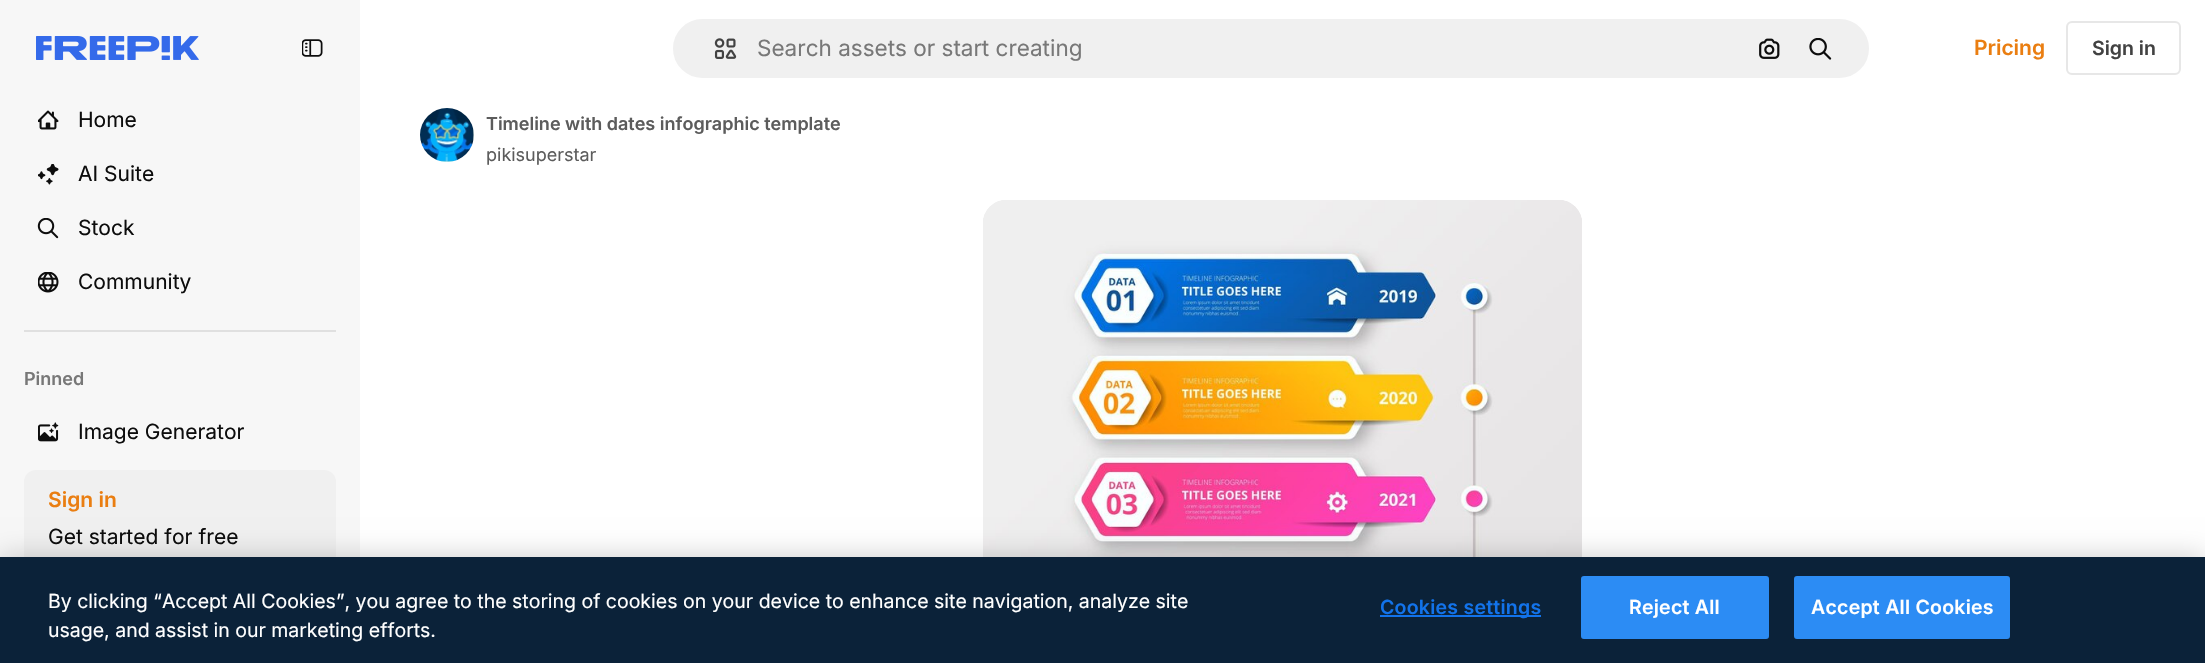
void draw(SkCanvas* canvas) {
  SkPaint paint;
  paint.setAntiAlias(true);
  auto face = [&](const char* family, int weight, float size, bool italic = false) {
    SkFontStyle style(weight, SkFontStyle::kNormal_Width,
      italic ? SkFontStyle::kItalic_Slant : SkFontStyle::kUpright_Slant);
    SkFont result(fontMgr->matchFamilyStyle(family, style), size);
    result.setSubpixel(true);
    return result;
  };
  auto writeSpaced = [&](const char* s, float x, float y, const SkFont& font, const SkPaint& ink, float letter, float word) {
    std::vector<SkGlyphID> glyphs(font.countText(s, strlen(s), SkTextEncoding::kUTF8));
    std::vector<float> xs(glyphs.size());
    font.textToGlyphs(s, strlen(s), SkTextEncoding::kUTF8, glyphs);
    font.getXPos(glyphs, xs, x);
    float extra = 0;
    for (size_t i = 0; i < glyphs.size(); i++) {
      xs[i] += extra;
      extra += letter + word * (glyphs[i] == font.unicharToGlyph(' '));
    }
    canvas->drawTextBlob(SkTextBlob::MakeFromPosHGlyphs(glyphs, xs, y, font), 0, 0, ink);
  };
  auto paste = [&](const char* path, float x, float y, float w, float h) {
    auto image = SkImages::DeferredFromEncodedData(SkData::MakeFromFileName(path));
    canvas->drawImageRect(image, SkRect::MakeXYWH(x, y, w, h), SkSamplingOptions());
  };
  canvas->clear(0xffffffff);
  paint.setColor(0xfff7f7f7);
  canvas->drawRect(SkRect::MakeXYWH(0, 0, 360, 557), paint);
  paste("img/1.png", 36, 36, 163, 24);
  paste("img/2.png", 302, 39, 21, 18);
  paste("img/3.png", 38, 110, 21, 20);
  paste("img/4.png", 38, 164, 21, 21);
  paste("img/5.png", 37, 218, 22, 21);
  paste("img/6.png", 38, 272, 21, 21);
  paint.setColor(0xffe0e0e0);
  canvas->drawRect(SkRect::MakeXYWH(24, 330, 312, 2), paint);
  paste("img/7.png", 38, 422, 21, 20);
  paint.setColor(0xfff0f0f0);
  canvas->drawRoundRect(SkRect::MakeXYWH(24, 470, 312, 97), 12, 12, paint);
  canvas->drawRoundRect(SkRect::MakeXYWH(672, 18, 1198, 61), 30.5f, 30.5f, paint);
  paint.setStroke(true);
  paint.setStrokeWidth(2);
  paint.setColor(0xffffffff);
  canvas->drawRoundRect(SkRect::MakeXYWH(672, 18, 1198, 61), 30.5f, 30.5f, paint);
  paste("img/8.png", 714, 38, 23, 21);
  paste("img/9.png", 1759, 38, 21, 21);
  paste("img/10.png", 1809, 38, 23, 22);
  paint.setColor(0xffe7e7e7);
  canvas->drawRoundRect(SkRect::MakeXYWH(2067, 22, 113, 52), 5, 5, paint);
  paste("img/11.png", 420, 108, 54, 54);
  paste("img/12.png", 983, 200, 599, 357);
  paint.setStroke(false);
  paint.setColor(0x33000000);
  paint.setMaskFilter(SkMaskFilter::MakeBlur(kNormal_SkBlurStyle, 13.5f));
  canvas->drawRect(SkRect::MakeXYWH(0, 557, 2205, 106), paint);
  paint.setMaskFilter(nullptr);
  paint.setColor(0xff0b2239);
  canvas->drawRect(SkRect::MakeXYWH(0, 557, 2205, 106), paint);
  paint.setColor(0xff1273eb);
  canvas->drawRect(SkRect::MakeXYWH(1380, 615, 161, 2), paint);
  paint.setColor(0xff2c8cf4);
  canvas->drawRoundRect(SkRect::MakeXYWH(1582, 577, 186, 61), 2, 2, paint);
  paint.setStroke(true);
  canvas->drawRoundRect(SkRect::MakeXYWH(1582, 577, 186, 61), 2, 2, paint);
  paint.setStroke(false);
  canvas->drawRoundRect(SkRect::MakeXYWH(1795, 577, 214, 61), 2, 2, paint);
  paint.setStroke(true);
  canvas->drawRoundRect(SkRect::MakeXYWH(1795, 577, 214, 61), 2, 2, paint);
  auto f0 = face("Inter", 400, 21);
  paint.setStroke(false);
  paint.setColor(0xff0d0d0d);
  {
    const struct { const char* s; float x, y; } items[] = {
      {"Home", 78, 127},
      {"AI Suite", 78, 181},
      {"Stock", 78, 235},
      {"Community", 78, 289},
    };
    for (auto [s, x, y] : items) {
      canvas->drawString(s, x, y, f0, paint);
    }
  }
  auto f1 = face("Inter", 600, 18);
  paint.setColor(0xff787878);
  canvas->drawString("Pinned", 24, 385, f1, paint);
  paint.setColor(0xff0d0d0d);
  canvas->drawString("Image Generator", 78, 439, f0, paint);
  auto f2 = face("Inter", 600, 21);
  paint.setColor(0xffea7e11);
  canvas->drawString("Sign in", 48, 507, f2, paint);
  paint.setColor(0xff0d0d0d);
  canvas->drawString("Get started for free", 48, 544, f0, paint);
  auto f3 = face("Inter", 400, 22.5f);
  paint.setColor(0xff787878);
  canvas->drawString("Search assets or start creating", 757, 56, f3, paint);
  paint.setColor(0xffea7e11);
  canvas->drawString("Pricing", 1974, 55, f2, paint);
  auto f4 = face("Inter", 600, 19.5f);
  paint.setColor(0xff424242);
  canvas->drawString("Sign in", 2092, 55, f4, paint);
  paint.setColor(0xff5c5c5c);
  canvas->drawString("Timeline with dates infographic template", 486, 130, f1, paint);
  auto f5 = face("Inter", 400, 18);
  canvas->drawString("pikisuperstar", 486, 161, f5, paint);
  auto f6 = face("Inter", 400, 19.5f);
  paint.setColor(0xffffffff);
  canvas->drawString("By clicking “Accept All Cookies”, you agree to the storing of cookies on your device to enhance site navigation, analyze site", 48, 608, f6, paint);
  canvas->drawString("usage, and assist in our marketing efforts.", 48, 637, f6, paint);
  paint.setColor(0xff1273eb);
  writeSpaced("Cookies settings", 1380, 614, f4, paint, 0.25f, 0);
  paint.setColor(0xffffffff);
  writeSpaced("Reject All", 1629, 614, f4, paint, 0.25f, 0);
  writeSpaced("Accept All Cookies", 1811, 614, f4, paint, 0.25f, 0);
}
